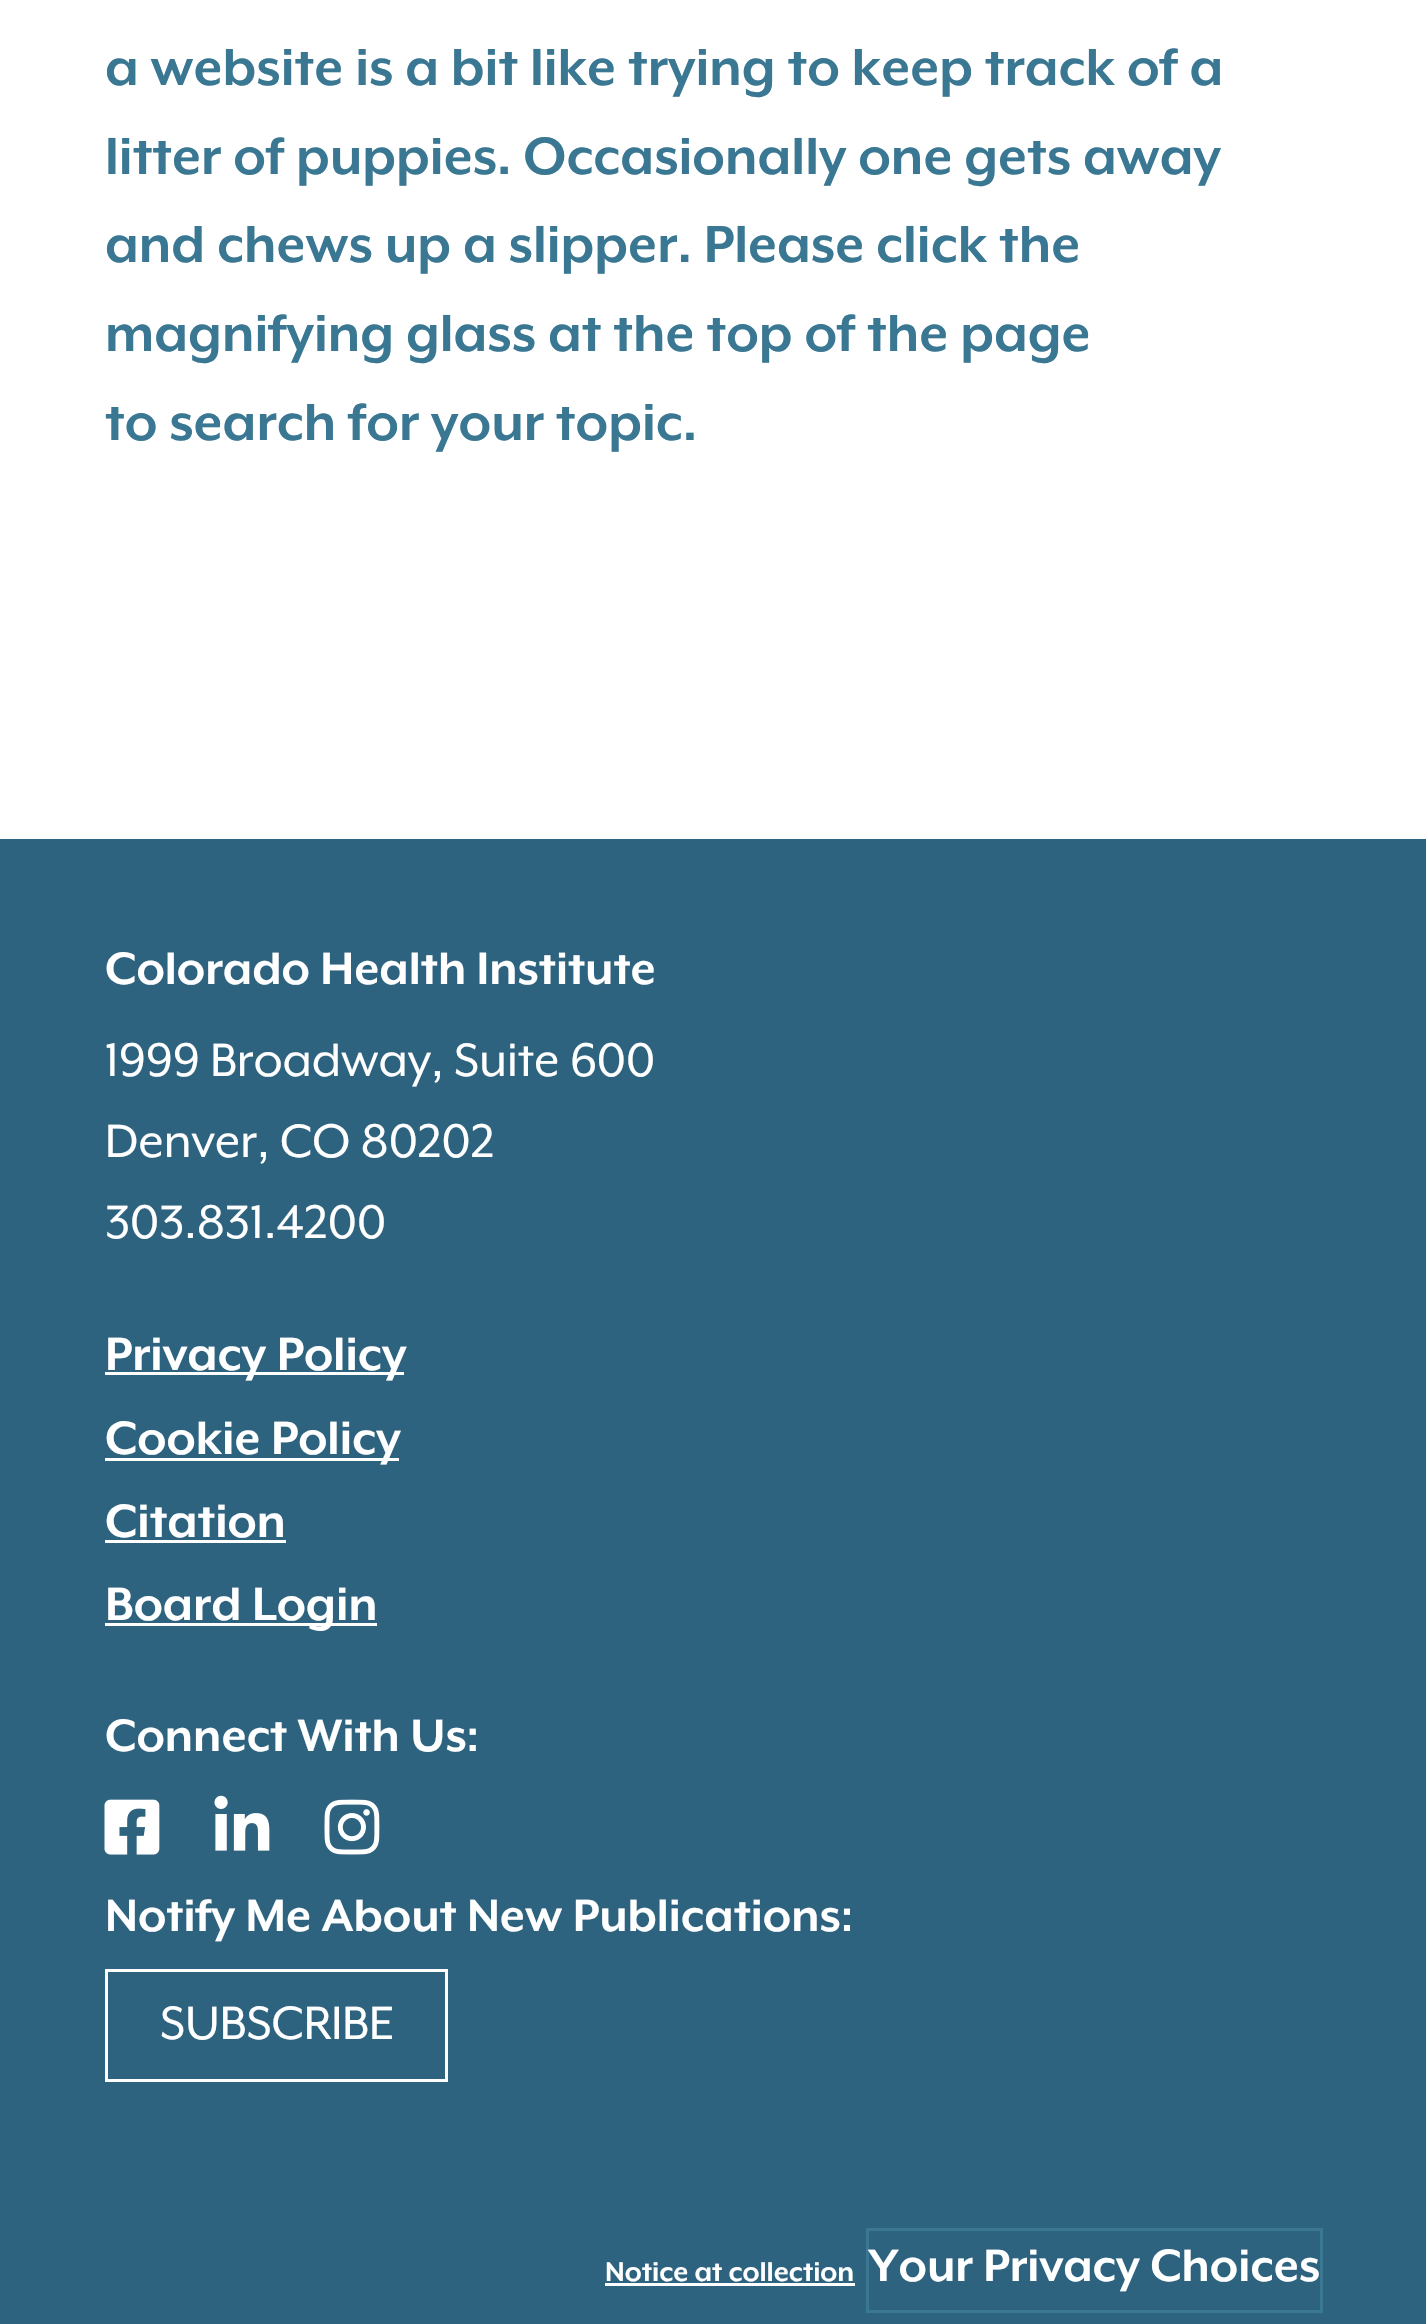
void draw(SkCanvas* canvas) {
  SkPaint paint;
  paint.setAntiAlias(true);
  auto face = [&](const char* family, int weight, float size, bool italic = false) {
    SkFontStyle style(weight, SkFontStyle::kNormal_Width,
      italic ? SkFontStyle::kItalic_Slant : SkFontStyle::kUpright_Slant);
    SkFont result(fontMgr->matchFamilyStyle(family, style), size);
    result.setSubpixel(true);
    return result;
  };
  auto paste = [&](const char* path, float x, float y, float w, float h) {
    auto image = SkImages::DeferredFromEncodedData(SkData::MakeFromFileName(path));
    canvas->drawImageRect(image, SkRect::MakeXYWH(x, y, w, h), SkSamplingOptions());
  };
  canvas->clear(0xffffffff);
  {
    const struct { float x, y, w, h; SkColor color; } items[] = {
      {0, 839, 1426, 1485, 0xff2e6380},
      {105, 1372, 299, 3, 0xffffffff},
      {105, 1458, 294, 3, 0xffffffff},
      {105, 1540, 181, 3, 0xffffffff},
      {105, 1623, 272, 3, 0xffffffff},
    };
    for (auto [x, y, w, h, color] : items) {
      paint.setColor(color);
      canvas->drawRect(SkRect::MakeXYWH(x, y, w, h), paint);
    }
  }
  paste("img/1.png", 104, 1799, 56, 56);
  paste("img/2.png", 214, 1795, 56, 56);
  paste("img/3.png", 324, 1799, 56, 56);
  paint.setStroke(true);
  paint.setStrokeWidth(3);
  canvas->drawRect(SkRect::MakeXYWH(106.5f, 1970.5f, 340, 110), paint);
  paint.setStroke(false);
  canvas->drawRect(SkRect::MakeXYWH(605, 2283, 250, 3), paint);
  paint.setStroke(true);
  paint.setColor(0xff3a7793);
  canvas->drawRect(SkRect::MakeXYWH(867.5f, 2229.5f, 454, 82), paint);
  auto f0 = face("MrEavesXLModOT", 700, 60.1f);
  paint.setStroke(false);
  paint.setColor(0xff3a7792);
  {
    const struct { const char* s; float x, y; } items[] = {
      {"a website is a bit like trying to keep track of a", 105, 85},
      {"litter of puppies. Occasionally one gets away", 105, 174},
      {"and chews up a slipper. Please click the", 105, 262},
      {"magnifying glass at the top of the page", 105, 351},
      {"to search for your topic.", 105, 440},
    };
    for (auto [s, x, y] : items) {
      canvas->drawString(s, x, y, f0, paint);
    }
  }
  auto f1 = face("MrEavesXLModOT", 700, 52.25f);
  paint.setColor(0xffffffff);
  canvas->drawString("Colorado Health Institute", 105, 984, f1, paint);
  auto f2 = face("MrEavesXLModOT", 400, 53.75f);
  {
    const struct { const char* s; float x, y; } items[] = {
      {"1999 Broadway, Suite 600", 105, 1076},
      {"Denver, CO 80202", 105, 1157},
      {"303.831.4200", 105, 1238},
    };
    for (auto [s, x, y] : items) {
      canvas->drawString(s, x, y, f2, paint);
    }
  }
  auto f3 = face("MrEavesXLModOT", 700, 53.75f);
  {
    const struct { const char* s; float x, y; } items[] = {
      {"Privacy Policy", 105, 1370},
      {"Cookie Policy", 105, 1454},
      {"Citation", 105, 1537},
      {"Board Login", 105, 1620},
    };
    for (auto [s, x, y] : items) {
      canvas->drawString(s, x, y, f3, paint);
    }
  }
  canvas->drawString("Connect With Us:", 105, 1751, f1, paint);
  canvas->drawString("Notify Me About New Publications:", 105, 1931, f1, paint);
  canvas->drawString("SUBSCRIBE", 160, 2039, f2, paint);
  auto f4 = face("MrEavesXLModOT", 700, 31.25f);
  canvas->drawString("Notice at collection", 605, 2281, f4, paint);
  canvas->drawString("Your Privacy Choices", 868, 2281, f1, paint);
}
